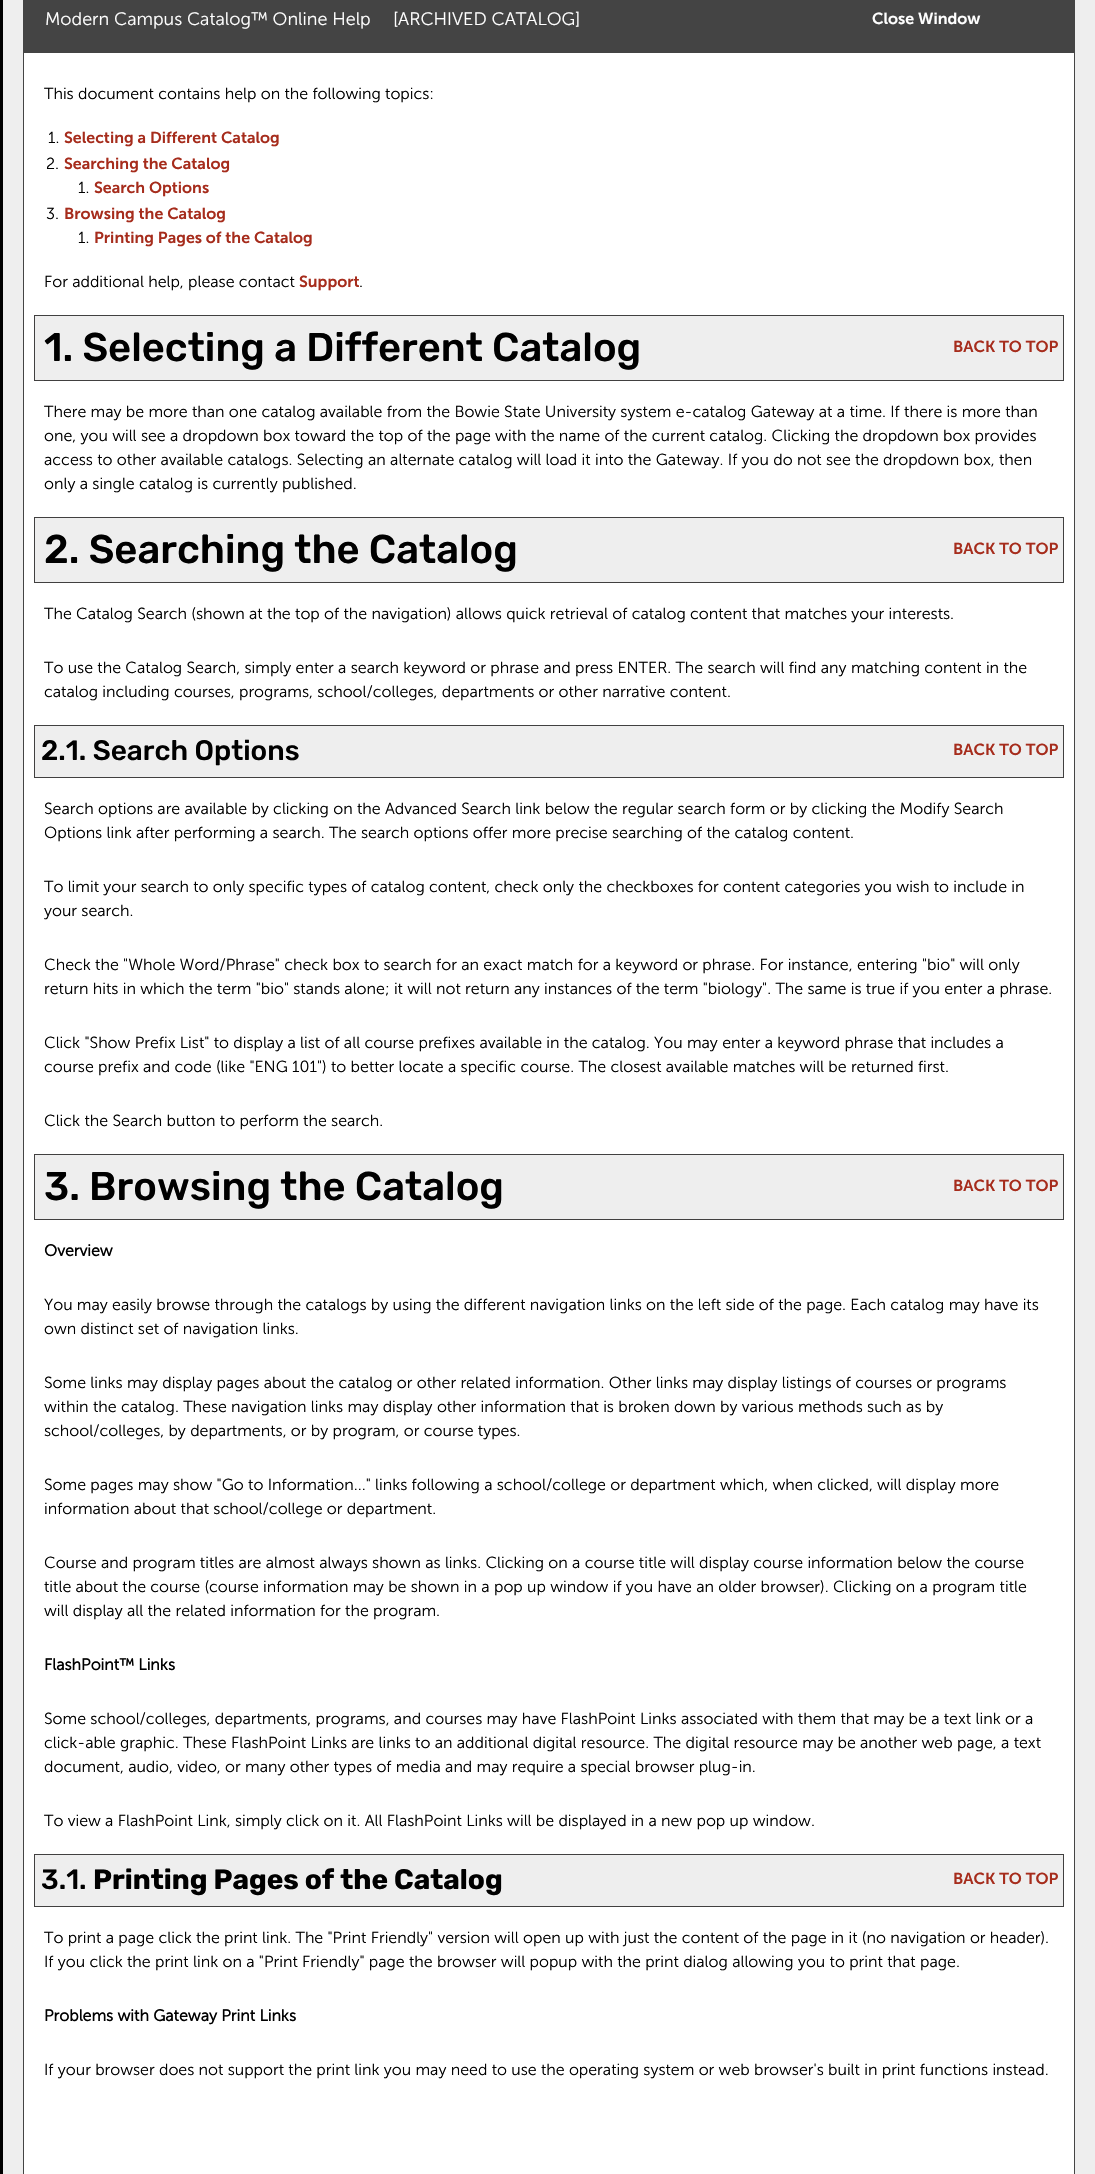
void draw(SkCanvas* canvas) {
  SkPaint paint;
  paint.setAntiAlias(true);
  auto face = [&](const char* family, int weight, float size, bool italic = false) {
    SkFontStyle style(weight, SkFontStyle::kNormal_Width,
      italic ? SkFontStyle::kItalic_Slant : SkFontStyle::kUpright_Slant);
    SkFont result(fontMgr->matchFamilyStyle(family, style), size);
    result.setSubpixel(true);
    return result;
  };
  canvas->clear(0xff000000);
  paint.setColor(0xffeeeeee);
  canvas->drawRect(SkRect::MakeXYWH(3, 0, 1092, 2174), paint);
  paint.setColor(0xffffffff);
  canvas->drawRect(SkRect::MakeXYWH(24, 53, 1050, 2121), paint);
  paint.setStroke(true);
  paint.setStrokeWidth(1);
  paint.setColor(0xff444444);
  canvas->drawRect(SkRect::MakeXYWH(23.5f, -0.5f, 1051, 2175), paint);
  paint.setStroke(false);
  canvas->drawRect(SkRect::MakeXYWH(24, 0, 1050, 53), paint);
  paint.setColor(0xffeeeeee);
  canvas->drawRect(SkRect::MakeXYWH(34.5f, 315.5f, 1029, 65), paint);
  paint.setStroke(true);
  paint.setColor(0xff414040);
  canvas->drawRect(SkRect::MakeXYWH(34.5f, 315.5f, 1029, 65), paint);
  paint.setStroke(false);
  paint.setColor(0xffeeeeee);
  canvas->drawRect(SkRect::MakeXYWH(34.5f, 517.5f, 1029, 65), paint);
  paint.setStroke(true);
  paint.setColor(0xff414040);
  canvas->drawRect(SkRect::MakeXYWH(34.5f, 517.5f, 1029, 65), paint);
  paint.setStroke(false);
  paint.setColor(0xffeeeeee);
  canvas->drawRect(SkRect::MakeXYWH(34.5f, 725.5f, 1029, 52), paint);
  paint.setStroke(true);
  paint.setColor(0xff414040);
  canvas->drawRect(SkRect::MakeXYWH(34.5f, 725.5f, 1029, 52), paint);
  paint.setStroke(false);
  paint.setColor(0xffeeeeee);
  canvas->drawRect(SkRect::MakeXYWH(34.5f, 1154.5f, 1029, 65), paint);
  paint.setStroke(true);
  paint.setColor(0xff414040);
  canvas->drawRect(SkRect::MakeXYWH(34.5f, 1154.5f, 1029, 65), paint);
  paint.setStroke(false);
  paint.setColor(0xffeeeeee);
  canvas->drawRect(SkRect::MakeXYWH(34.5f, 1854.5f, 1029, 52), paint);
  paint.setStroke(true);
  paint.setColor(0xff414040);
  canvas->drawRect(SkRect::MakeXYWH(34.5f, 1854.5f, 1029, 52), paint);
  auto f0 = face("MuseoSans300", 400, 18);
  paint.setStroke(false);
  paint.setColor(0xffffffff);
  canvas->drawString("Modern Campus Catalog™ Online Help", 45, 25, f0, paint);
  canvas->drawString("[ARCHIVED CATALOG]", 393, 25, f0, paint);
  auto f1 = face("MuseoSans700", 400, 16);
  canvas->drawString("Close Window", 872, 24, f1, paint);
  auto f2 = face("MuseoSans300", 400, 16);
  paint.setColor(0xff000000);
  canvas->drawString("This document contains help on the following topics:", 44, 99, f2, paint);
  canvas->drawString("1.", 48, 143, f2, paint);
  paint.setColor(0xffa62c1c);
  canvas->drawString("Selecting a Different Catalog", 64, 143, f1, paint);
  paint.setColor(0xff000000);
  canvas->drawString("2.", 46, 169, f2, paint);
  paint.setColor(0xffa62c1c);
  canvas->drawString("Searching the Catalog", 64, 169, f1, paint);
  paint.setColor(0xff000000);
  canvas->drawString("1.", 78, 193, f2, paint);
  paint.setColor(0xffa62c1c);
  canvas->drawString("Search Options", 94, 193, f1, paint);
  paint.setColor(0xff000000);
  canvas->drawString("3.", 46, 219, f2, paint);
  paint.setColor(0xffa62c1c);
  canvas->drawString("Browsing the Catalog", 64, 219, f1, paint);
  paint.setColor(0xff000000);
  canvas->drawString("1.", 78, 243, f2, paint);
  paint.setColor(0xffa62c1c);
  canvas->drawString("Printing Pages of the Catalog", 94, 243, f1, paint);
  paint.setColor(0xff000000);
  canvas->drawString("For additional help, please contact", 44, 287, f2, paint);
  paint.setColor(0xffa62c1c);
  canvas->drawString("Support", 299, 287, f1, paint);
  paint.setColor(0xff000000);
  canvas->drawString(".", 359, 287, f2, paint);
  auto f3 = face("Rubik", 500, 40);
  canvas->drawString("1. Selecting a Different Catalog", 44, 361, f3, paint);
  paint.setColor(0xffa62c1c);
  canvas->drawString("BACK TO TOP", 953, 352, f1, paint);
  paint.setColor(0xff000000);
  {
    const struct { const char* s; float x, y; } items[] = {
      {"There may be more than one catalog available from the Bowie State University system e-catalog Gateway at a time. If there is more than", 44, 417},
      {"one, you will see a dropdown box toward the top of the page with the name of the current catalog. Clicking the dropdown box provides", 44, 441},
      {"access to other available catalogs. Selecting an alternate catalog will load it into the Gateway. If you do not see the dropdown box, then", 44, 465},
      {"only a single catalog is currently published.", 44, 489},
    };
    for (auto [s, x, y] : items) {
      canvas->drawString(s, x, y, f2, paint);
    }
  }
  canvas->drawString("2. Searching the Catalog", 44, 563, f3, paint);
  paint.setColor(0xffa62c1c);
  canvas->drawString("BACK TO TOP", 953, 554, f1, paint);
  paint.setColor(0xff000000);
  {
    const struct { const char* s; float x, y; } items[] = {
      {"The Catalog Search (shown at the top of the navigation) allows quick retrieval of catalog content that matches your interests.", 44, 619},
      {"To use the Catalog Search, simply enter a search keyword or phrase and press ENTER. The search will find any matching content in the", 44, 673},
      {"catalog including courses, programs, school/colleges, departments or other narrative content.", 44, 697},
    };
    for (auto [s, x, y] : items) {
      canvas->drawString(s, x, y, f2, paint);
    }
  }
  auto f4 = face("Rubik", 500, 28);
  canvas->drawString("2.1. Search Options", 41, 760, f4, paint);
  paint.setColor(0xffa62c1c);
  canvas->drawString("BACK TO TOP", 953, 755, f1, paint);
  paint.setColor(0xff000000);
  {
    const struct { const char* s; float x, y; } items[] = {
      {"Search options are available by clicking on the Advanced Search link below the regular search form or by clicking the Modify Search", 44, 814},
      {"Options link after performing a search. The search options offer more precise searching of the catalog content.", 44, 838},
      {"To limit your search to only specific types of catalog content, check only the checkboxes for content categories you wish to include in", 44, 892},
      {"your search.", 44, 916},
      {"Check the \"Whole Word/Phrase\" check box to search for an exact match for a keyword or phrase. For instance, entering \"bio\" will only", 44, 970},
      {"return hits in which the term \"bio\" stands alone; it will not return any instances of the term \"biology\". The same is true if you enter a phrase.", 44, 994},
      {"Click \"Show Prefix List\" to display a list of all course prefixes available in the catalog. You may enter a keyword phrase that includes a", 44, 1048},
      {"course prefix and code (like \"ENG 101\") to better locate a specific course. The closest available matches will be returned first.", 44, 1072},
      {"Click the Search button to perform the search.", 44, 1126},
    };
    for (auto [s, x, y] : items) {
      canvas->drawString(s, x, y, f2, paint);
    }
  }
  canvas->drawString("3. Browsing the Catalog", 44, 1200, f3, paint);
  paint.setColor(0xffa62c1c);
  canvas->drawString("BACK TO TOP", 953, 1191, f1, paint);
  auto f5 = face("MuseoSans300", 700, 16);
  paint.setColor(0xff000000);
  canvas->drawString("Overview", 44, 1256, f5, paint);
  {
    const struct { const char* s; float x, y; } items[] = {
      {"You may easily browse through the catalogs by using the different navigation links on the left side of the page. Each catalog may have its", 44, 1310},
      {"own distinct set of navigation links.", 44, 1334},
      {"Some links may display pages about the catalog or other related information. Other links may display listings of courses or programs", 44, 1388},
      {"within the catalog. These navigation links may display other information that is broken down by various methods such as by", 44, 1412},
      {"school/colleges, by departments, or by program, or course types.", 44, 1436},
      {"Some pages may show \"Go to Information...\" links following a school/college or department which, when clicked, will display more", 44, 1490},
      {"information about that school/college or department.", 44, 1514},
      {"Course and program titles are almost always shown as links. Clicking on a course title will display course information below the course", 44, 1568},
      {"title about the course (course information may be shown in a pop up window if you have an older browser). Clicking on a program title", 44, 1592},
      {"will display all the related information for the program.", 44, 1616},
    };
    for (auto [s, x, y] : items) {
      canvas->drawString(s, x, y, f2, paint);
    }
  }
  canvas->drawString("FlashPoint™ Links", 44, 1670, f5, paint);
  {
    const struct { const char* s; float x, y; } items[] = {
      {"Some school/colleges, departments, programs, and courses may have FlashPoint Links associated with them that may be a text link or a", 44, 1724},
      {"click-able graphic. These FlashPoint Links are links to an additional digital resource. The digital resource may be another web page, a text", 44, 1748},
      {"document, audio, video, or many other types of media and may require a special browser plug-in.", 44, 1772},
      {"To view a FlashPoint Link, simply click on it. All FlashPoint Links will be displayed in a new pop up window.", 44, 1826},
    };
    for (auto [s, x, y] : items) {
      canvas->drawString(s, x, y, f2, paint);
    }
  }
  canvas->drawString("3.1.", 41, 1889, f4, paint);
  auto f6 = face("Rubik", 700, 28);
  canvas->drawString("Printing Pages of the Catalog", 93, 1889, f6, paint);
  paint.setColor(0xffa62c1c);
  canvas->drawString("BACK TO TOP", 953, 1884, f1, paint);
  paint.setColor(0xff000000);
  canvas->drawString("To print a page click the print link. The \"Print Friendly\" version will open up with just the content of the page in it (no navigation or header).", 44, 1943, f2, paint);
  canvas->drawString("If you click the print link on a \"Print Friendly\" page the browser will popup with the print dialog allowing you to print that page.", 44, 1967, f2, paint);
  canvas->drawString("Problems with Gateway Print Links", 44, 2021, f5, paint);
  canvas->drawString("If your browser does not support the print link you may need to use the operating system or web browser's built in print functions instead.", 44, 2075, f2, paint);
}
